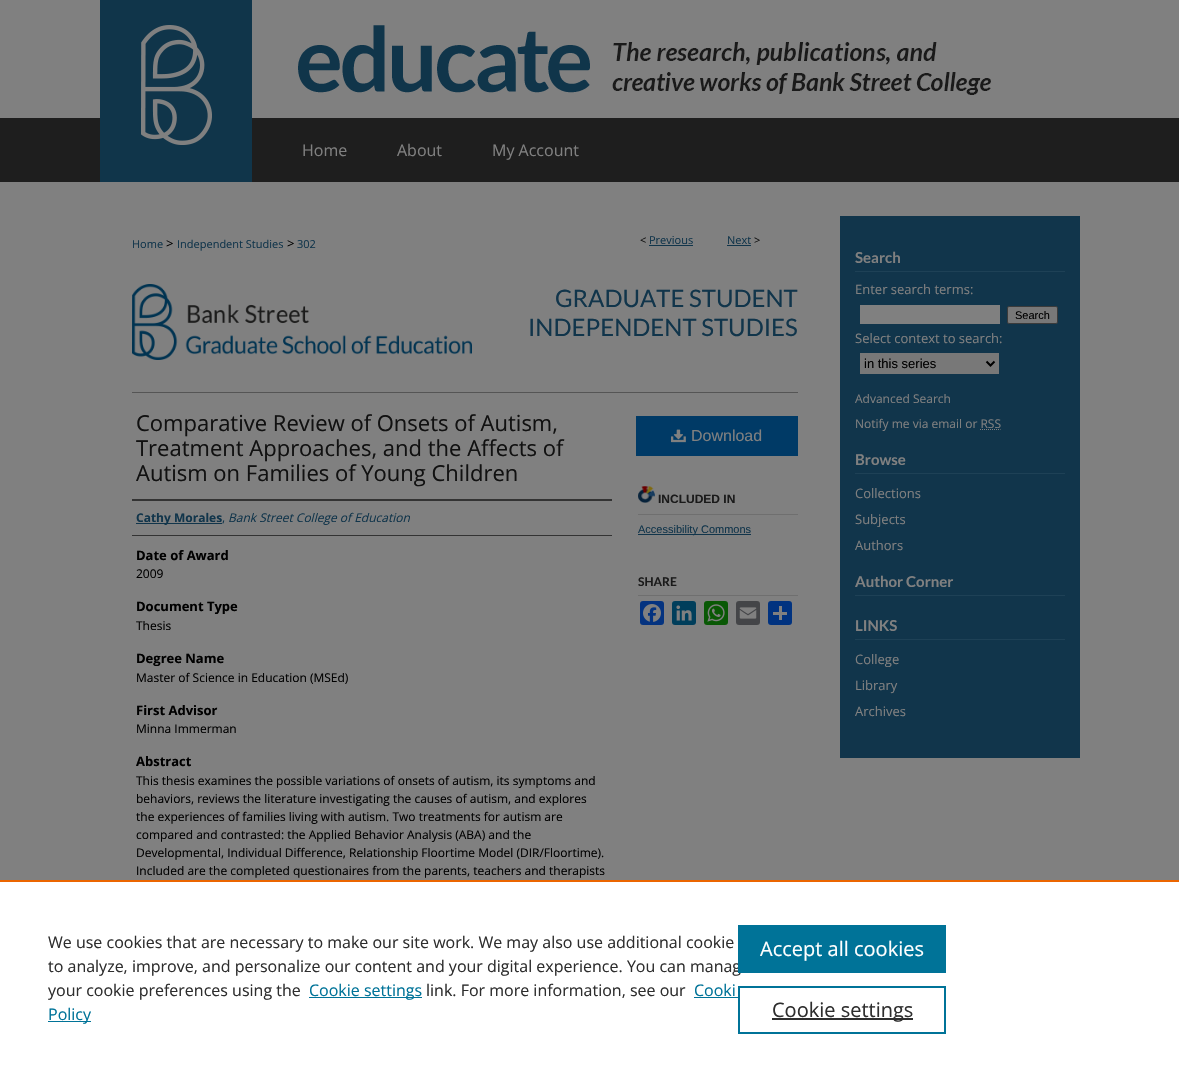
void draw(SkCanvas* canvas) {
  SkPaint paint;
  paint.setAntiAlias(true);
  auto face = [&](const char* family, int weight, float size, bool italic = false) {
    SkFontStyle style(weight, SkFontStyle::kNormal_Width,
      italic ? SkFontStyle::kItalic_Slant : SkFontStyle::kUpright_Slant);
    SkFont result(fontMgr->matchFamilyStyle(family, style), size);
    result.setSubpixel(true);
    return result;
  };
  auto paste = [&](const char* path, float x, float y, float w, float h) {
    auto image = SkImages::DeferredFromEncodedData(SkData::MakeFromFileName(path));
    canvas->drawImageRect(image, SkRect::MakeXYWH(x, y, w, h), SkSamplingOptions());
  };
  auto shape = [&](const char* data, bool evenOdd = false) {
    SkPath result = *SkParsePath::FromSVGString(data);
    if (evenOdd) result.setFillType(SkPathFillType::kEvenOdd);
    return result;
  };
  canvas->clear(0xff808080);
  paint.setColor(0xff1e1e1e);
  canvas->drawRect(SkRect::MakeXYWH(0, 118, 1179, 64), paint);
  paste("img/1.png", 100, 0, 980, 182);
  paint.setColor(0xff11354b);
  canvas->drawRect(SkRect::MakeXYWH(649, 245, 44, 1), paint);
  canvas->drawRect(SkRect::MakeXYWH(727, 245, 24, 1), paint);
  paste("img/2.png", 132, 284, 340, 76);
  {
    const struct { float x, y, w, h; SkColor color; } items[] = {
      {132, 392, 666, 1, 0xff555555},
      {132, 499, 480, 2, 0xff333333},
      {132, 535, 480, 1, 0xff333333},
      {136, 523, 86, 1, 0xff11354b},
      {636, 416, 162, 40, 0xff003a66},
    };
    for (auto [x, y, w, h, color] : items) {
      paint.setColor(color);
      canvas->drawRect(SkRect::MakeXYWH(x, y, w, h), paint);
    }
  }
  paste("img/3.png", 671, 429, 15, 14);
  paste("img/4.png", 638, 486, 17, 17);
  {
    const struct { float x, y, w, h; SkColor color; } items[] = {
      {638, 514, 160, 1, 0xff6f6f6f},
      {638, 534, 113, 1, 0xff11354b},
      {638, 595, 160, 1, 0xff6f6f6f},
    };
    for (auto [x, y, w, h, color] : items) {
      paint.setColor(color);
      canvas->drawRect(SkRect::MakeXYWH(x, y, w, h), paint);
    }
  }
  paint.setColor(0xff043380);
  canvas->drawRoundRect(SkRect::MakeXYWH(640, 601, 24, 24), 3, 3, paint);
  paste("img/5.png", 643, 604, 18, 18);
  paint.setColor(0xff003e5b);
  canvas->drawRoundRect(SkRect::MakeXYWH(672, 601, 24, 24), 3, 3, paint);
  paste("img/6.png", 676, 605, 16, 16);
  paint.setColor(0xff095805);
  canvas->drawRoundRect(SkRect::MakeXYWH(704, 601, 24, 24), 3, 3, paint);
  paste("img/7.png", 707, 604, 18, 18);
  paint.setColor(0xff444548);
  canvas->drawRoundRect(SkRect::MakeXYWH(736, 601, 24, 24), 3, 3, paint);
  paste("img/8.png", 739, 607, 18, 12);
  paint.setColor(0xff013380);
  canvas->drawRoundRect(SkRect::MakeXYWH(768, 601, 24, 24), 3, 3, paint);
  {
    const struct { float x, y, w, h; SkColor color; } items[] = {
      {779, 606, 3, 14, 0xff808080},
      {773, 612, 14, 3, 0xff808080},
      {840, 216, 240, 542, 0xff11354b},
      {855, 271, 210, 1, 0xff1e4156},
      {860, 305, 140, 19, 0xff808080},
    };
    for (auto [x, y, w, h, color] : items) {
      paint.setColor(color);
      canvas->drawRect(SkRect::MakeXYWH(x, y, w, h), paint);
    }
  }
  paint.setColor(0xff787878);
  canvas->drawRoundRect(SkRect::MakeXYWH(1007.5f, 306.5f, 50, 17), 1.5f, 1.5f, paint);
  paint.setStroke(true);
  paint.setStrokeWidth(1);
  paint.setColor(0xff3b3b3b);
  canvas->drawRoundRect(SkRect::MakeXYWH(1007.5f, 306.5f, 50, 17), 1.5f, 1.5f, paint);
  paint.setStroke(false);
  paint.setColor(0xff787878);
  canvas->drawRect(SkRect::MakeXYWH(860, 353, 139, 21), paint);
  paint.setStroke(true);
  paint.setStrokeWidth(2);
  paint.setColor(0xff000000);
  canvas->drawPath(shape("M986.5 361.5L990.5 365.5L994.5 361.5"), paint);
  paint.setStrokeWidth(1);
  paint.setColor(0xff808080);
  paint.setPathEffect(SkDashPathEffect::Make({{1, 1}}, 0));
  canvas->drawPath(shape("M980 429.5H1000.5"), paint);
  paint.setPathEffect(nullptr);
  paint.setStroke(false);
  {
    const struct { float x, y, w, h; SkColor color; } items[] = {
      {855, 473, 210, 1, 0xff1e4156},
      {855, 595, 210, 1, 0xff1e4156},
      {855, 639, 210, 1, 0xff1e4156},
      {0, 882, 1179, 192, 0xffffffff},
      {0, 880, 1179, 2, 0xffeb6500},
      {309, 997, 113, 1, 0xff007398},
      {694, 997, 50, 1, 0xff007398},
      {48, 1021, 43, 1, 0xff007398},
      {740, 997, 4, 1, 0xffffffff},
    };
    for (auto [x, y, w, h, color] : items) {
      paint.setColor(color);
      canvas->drawRect(SkRect::MakeXYWH(x, y, w, h), paint);
    }
  }
  paint.setStroke(true);
  paint.setStrokeWidth(2);
  paint.setColor(0xff007398);
  canvas->drawRect(SkRect::MakeXYWH(739, 987, 206, 46), paint);
  paint.setStroke(false);
  paint.setColor(0xff2e2e2e);
  canvas->drawRect(SkRect::MakeXYWH(772, 1018, 141, 2), paint);
  auto f0 = face("Open Sans", 400, 16);
  paint.setColor(0xff808080);
  {
    const struct { const char* s; float x, y; } items[] = {
      {"Home", 302, 156},
      {"About", 397, 156},
      {"My Account", 492, 156},
    };
    for (auto [s, x, y] : items) {
      canvas->drawString(s, x, y, f0, paint);
    }
  }
  auto f1 = face("Open Sans", 400, 11);
  paint.setColor(0xff11354b);
  canvas->drawString("Home", 132, 248, f1, paint);
  auto f2 = face("Open Sans", 400, 13);
  paint.setColor(0xff000000);
  canvas->drawString(">", 166, 248, f2, paint);
  paint.setColor(0xff11354b);
  canvas->drawString("Independent Studies", 177, 248, f1, paint);
  paint.setColor(0xff000000);
  canvas->drawString(">", 287, 248, f2, paint);
  paint.setColor(0xff11354b);
  canvas->drawString("302", 297, 248, f1, paint);
  paint.setColor(0xff111111);
  canvas->drawString("<", 640, 244, f1, paint);
  paint.setColor(0xff11354b);
  canvas->drawString("Previous", 649, 244, f1, paint);
  canvas->drawString("Next", 727, 244, f1, paint);
  paint.setColor(0xff111111);
  canvas->drawString(">", 754, 244, f1, paint);
  auto f3 = face("Lato", 400, 24);
  paint.setColor(0xff11354b);
  canvas->drawString("GRADUATE STUDENT", 555, 307, f3, paint);
  canvas->drawString("INDEPENDENT STUDIES", 528, 336, f3, paint);
  auto f4 = face("Open Sans", 400, 22);
  paint.setColor(0xff111111);
  {
    const struct { const char* s; float x, y; } items[] = {
      {"Comparative Review of Onsets of Autism,", 136, 431},
      {"Treatment Approaches, and the Affects of", 136, 456},
      {"Autism on Families of Young Children", 136, 481},
    };
    for (auto [s, x, y] : items) {
      canvas->drawString(s, x, y, f4, paint);
    }
  }
  auto f5 = face("Open Sans", 700, 12);
  paint.setColor(0xff11354b);
  canvas->drawString("Cathy Morales", 136, 522, f5, paint);
  auto f6 = face("Open Sans", 400, 12);
  canvas->drawString(",", 222, 522, f6, paint);
  auto f7 = face("Open Sans", 400, 12, true);
  canvas->drawString("Bank Street College of Education", 228, 522, f7, paint);
  auto f8 = face("Open Sans", 700, 13);
  paint.setColor(0xff000000);
  canvas->drawString("Date of Award", 136, 560, f8, paint);
  canvas->drawString("2009", 136, 578, f6, paint);
  canvas->drawString("Document Type", 136, 611, f8, paint);
  canvas->drawString("Thesis", 136, 630, f6, paint);
  canvas->drawString("Degree Name", 136, 663, f8, paint);
  canvas->drawString("Master of Science in Education (MSEd)", 136, 682, f6, paint);
  canvas->drawString("First Advisor", 136, 715, f8, paint);
  canvas->drawString("Minna Immerman", 136, 733, f6, paint);
  canvas->drawString("Abstract", 136, 766, f8, paint);
  {
    const struct { const char* s; float x, y; } items[] = {
      {"This thesis examines the possible variations of onsets of autism, its symptoms and", 136, 785},
      {"behaviors, reviews the literature investigating the causes of autism, and explores", 136, 803},
      {"the experiences of families living with autism. Two treatments for autism are", 136, 821},
      {"compared and contrasted: the Applied Behavior Analysis (ABA) and the", 136, 839},
      {"Developmental, Individual Difference, Relationship Floortime Model (DIR/Floortime).", 136, 857},
      {"Included are the completed questionaires from the parents, teachers and therapists", 136, 875},
    };
    for (auto [s, x, y] : items) {
      canvas->drawString(s, x, y, f6, paint);
    }
  }
  auto f9 = face("Liberation Sans", 400, 16);
  paint.setColor(0xff808080);
  canvas->drawString("Download", 691, 441, f9, paint);
  auto f10 = face("Liberation Sans", 700, 12);
  paint.setColor(0xff1a1a1a);
  canvas->drawString("INCLUDED IN", 658, 503, f10, paint);
  auto f11 = face("Liberation Sans", 400, 11);
  paint.setColor(0xff11354b);
  canvas->drawString("Accessibility Commons", 638, 533, f11, paint);
  auto f12 = face("Lato", 700, 12);
  paint.setColor(0xff1a1a1a);
  canvas->drawString("SHARE", 638, 586, f12, paint);
  auto f13 = face("Lato", 700, 15);
  paint.setColor(0xff808080);
  canvas->drawString("Search", 855, 263, f13, paint);
  canvas->drawString("Enter search terms:", 855, 294, f2, paint);
  paint.setColor(0xff000000);
  canvas->drawString("Search", 1015, 319, f11, paint);
  paint.setColor(0xff808080);
  canvas->drawString("Select context to search:", 855, 343, f2, paint);
  auto f14 = face("Liberation Sans", 400, 13);
  paint.setColor(0xff000000);
  canvas->drawString("in this series", 864, 368, f14, paint);
  paint.setColor(0xff808080);
  canvas->drawString("Advanced Search", 855, 403, f6, paint);
  canvas->drawString("Notify me via email or RSS", 855, 428, f6, paint);
  canvas->drawString("Browse", 855, 465, f13, paint);
  {
    const struct { const char* s; float x, y; } items[] = {
      {"Collections", 855, 498},
      {"Subjects", 855, 524},
      {"Authors", 855, 550},
    };
    for (auto [s, x, y] : items) {
      canvas->drawString(s, x, y, f2, paint);
    }
  }
  canvas->drawString("Author Corner", 855, 587, f13, paint);
  canvas->drawString("LINKS", 855, 631, f13, paint);
  {
    const struct { const char* s; float x, y; } items[] = {
      {"College", 855, 664},
      {"Library", 855, 690},
      {"Archives", 855, 716},
    };
    for (auto [s, x, y] : items) {
      canvas->drawString(s, x, y, f2, paint);
    }
  }
  paint.setColor(0xff2e2e2e);
  {
    const struct { const char* s; float x, y; } items[] = {
      {"We use cookies that are necessary to make our site work. We may also use additional cookie", 48, 948},
      {"to analyze, improve, and personalize our content and your digital experience. You can manag", 48, 972},
      {"your cookie preferences using the", 48, 996},
    };
    for (auto [s, x, y] : items) {
      canvas->drawString(s, x, y, f0, paint);
    }
  }
  paint.setColor(0xff007398);
  canvas->drawString("Cookie settings", 309, 996, f0, paint);
  paint.setColor(0xff2e2e2e);
  canvas->drawString("link. For more information, see our", 426, 996, f0, paint);
  paint.setColor(0xff007398);
  canvas->drawString("Cooki", 694, 996, f0, paint);
  canvas->drawString("Policy", 48, 1020, f0, paint);
  canvas->drawRect(SkRect::MakeXYWH(738, 925, 208, 48), paint);
  auto f15 = face("Open Sans", 400, 20);
  paint.setColor(0xffffffff);
  canvas->drawString("Accept all cookies", 760, 956, f15, paint);
  paint.setColor(0xff2e2e2e);
  canvas->drawString("Cookie settings", 772, 1017, f15, paint);
}
